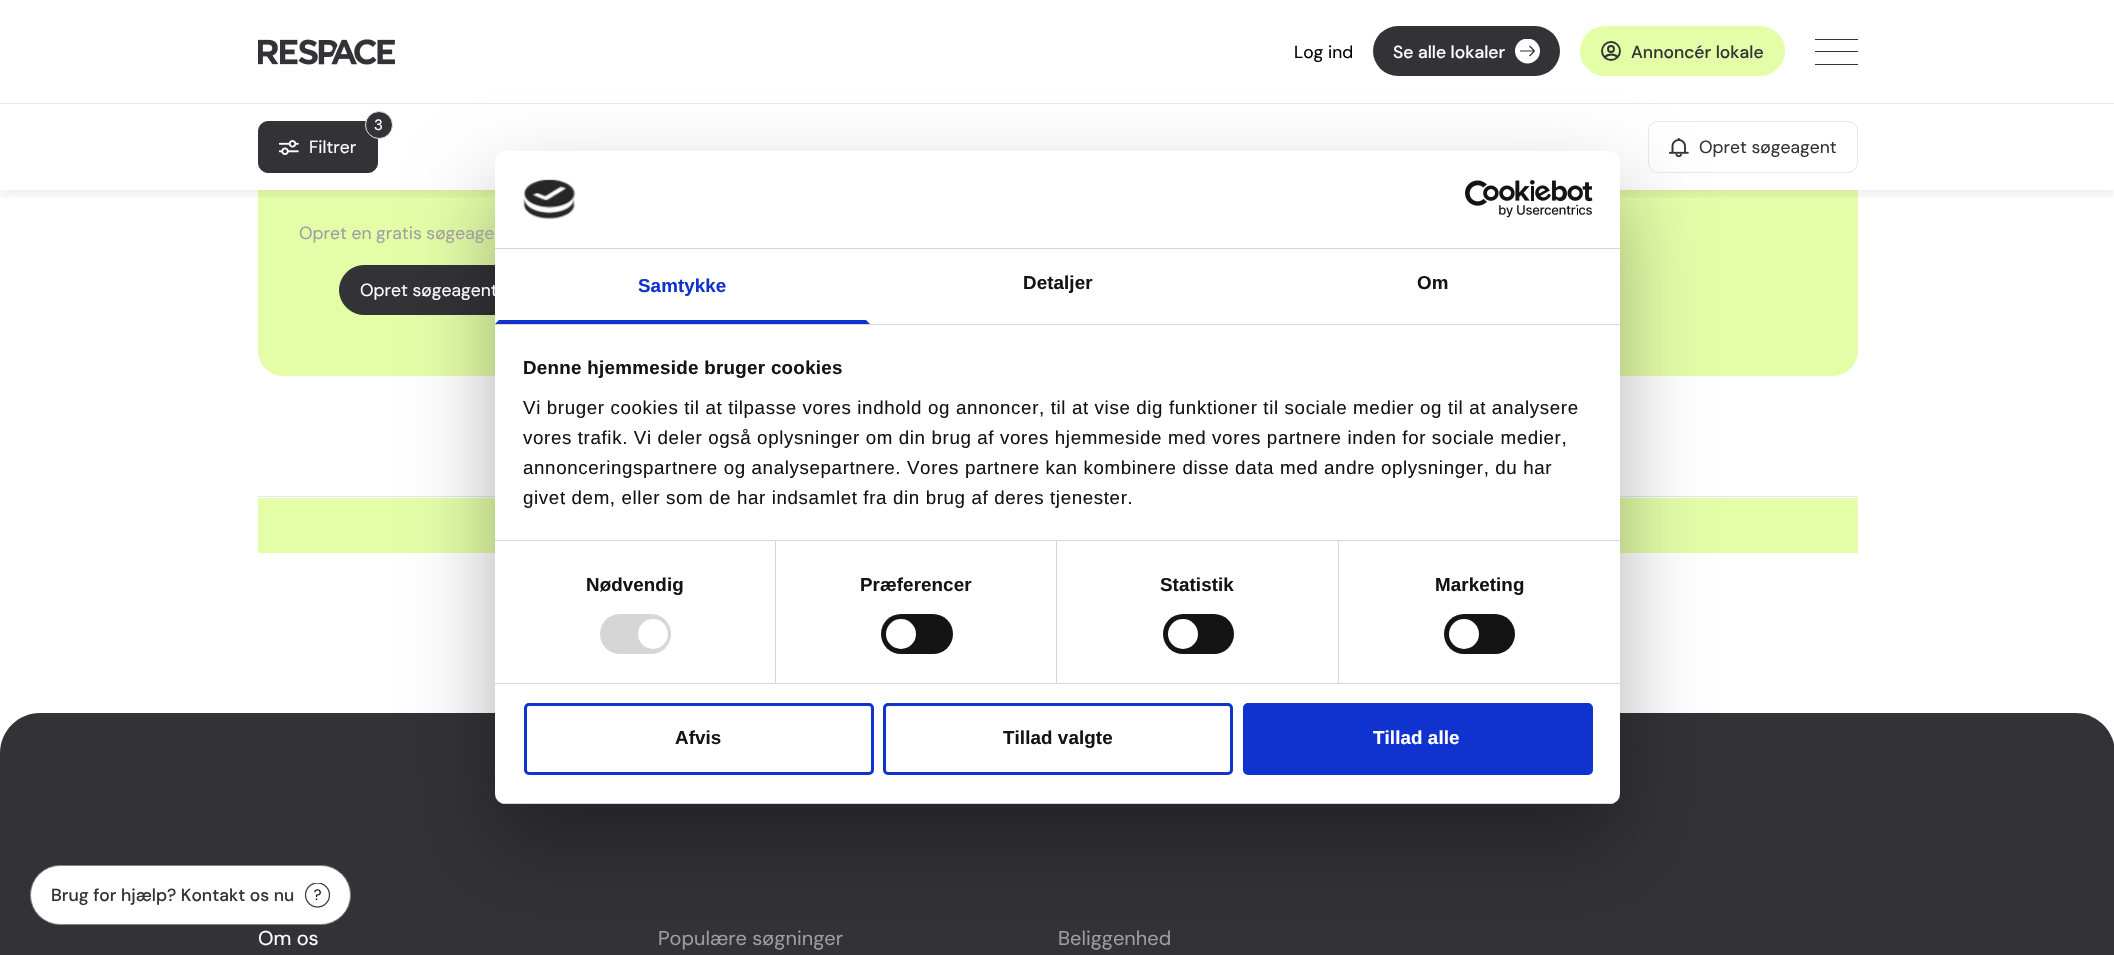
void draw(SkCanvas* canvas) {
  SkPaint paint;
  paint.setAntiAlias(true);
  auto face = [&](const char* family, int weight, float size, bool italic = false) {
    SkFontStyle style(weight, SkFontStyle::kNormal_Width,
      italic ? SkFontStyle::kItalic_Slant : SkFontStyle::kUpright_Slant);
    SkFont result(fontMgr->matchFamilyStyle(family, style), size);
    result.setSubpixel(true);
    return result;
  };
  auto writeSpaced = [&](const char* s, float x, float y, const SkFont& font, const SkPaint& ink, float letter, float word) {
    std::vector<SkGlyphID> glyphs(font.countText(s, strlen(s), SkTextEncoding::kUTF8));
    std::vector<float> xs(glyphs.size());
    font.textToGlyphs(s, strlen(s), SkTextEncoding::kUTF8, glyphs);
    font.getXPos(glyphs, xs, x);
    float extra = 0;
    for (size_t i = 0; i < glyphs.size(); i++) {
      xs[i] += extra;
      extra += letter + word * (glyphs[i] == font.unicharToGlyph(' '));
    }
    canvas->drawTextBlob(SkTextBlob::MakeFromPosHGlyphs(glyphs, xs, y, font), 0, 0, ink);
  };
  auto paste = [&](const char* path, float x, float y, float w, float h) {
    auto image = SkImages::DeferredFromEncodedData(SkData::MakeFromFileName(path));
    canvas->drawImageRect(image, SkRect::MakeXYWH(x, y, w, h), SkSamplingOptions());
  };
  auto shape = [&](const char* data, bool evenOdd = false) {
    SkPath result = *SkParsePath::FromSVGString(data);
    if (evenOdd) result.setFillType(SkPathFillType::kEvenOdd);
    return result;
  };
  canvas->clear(0xffffffff);
  paint.setColor(0xffe4fea8);
  canvas->drawRoundRect(SkRect::MakeXYWH(258.5f, 64.5f, 1599, 311), 24.5f, 24.5f, paint);
  paint.setStroke(true);
  paint.setStrokeWidth(1);
  canvas->drawRoundRect(SkRect::MakeXYWH(258.5f, 64.5f, 1599, 311), 24.5f, 24.5f, paint);
  paint.setStroke(false);
  paint.setColor(0xffffffff);
  canvas->drawRect(SkRect::MakeXYWH(258, 104, 1600, 86), paint);
  paint.setColor(0xffe8e8e9);
  canvas->drawRect(SkRect::MakeXYWH(0, 103, 2114, 1), paint);
  canvas->save();
  canvas->clipRect(SkRect::MakeXYWH(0, 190, 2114, 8));
  paint.setColor(0x12000000);
  paint.setMaskFilter(SkMaskFilter::MakeBlur(kNormal_SkBlurStyle, 5));
  canvas->drawRect(SkRect::MakeXYWH(0, 109, 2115, 86), paint);
  paint.setMaskFilter(nullptr);
  canvas->restore();
  paint.setColor(0xffffffff);
  canvas->drawRect(SkRect::MakeXYWH(258, 64, 1600, 39), paint);
  paste("img/1.png", 258, 39, 137, 26);
  paint.setColor(0xff323237);
  canvas->drawRoundRect(SkRect::MakeXYWH(1373, 26, 187, 50), 25, 25, paint);
  canvas->save();
  canvas->clipRect(SkRect::MakeXYWH(1515, 39, 25, 25));
  paint.setColor(0xffffffff);
  canvas->drawCircle(1527.5f, 51, 12.5f, paint);
  canvas->restore();
  paint.setStroke(true);
  paint.setStrokeWidth(1.2f);
  paint.setColor(0xff323237);
  canvas->drawPath(shape("M1520 51H1534.5M1534.5 51L1529.5 46M1534.5 51L1529.5 56"), paint);
  paint.setStroke(false);
  paint.setColor(0xffe4fea8);
  canvas->drawRoundRect(SkRect::MakeXYWH(1580.5f, 26.5f, 204, 49), 24.5f, 24.5f, paint);
  paint.setStroke(true);
  paint.setStrokeWidth(1);
  canvas->drawRoundRect(SkRect::MakeXYWH(1580.5f, 26.5f, 204, 49), 24.5f, 24.5f, paint);
  paint.setStrokeWidth(1.9f);
  paint.setColor(0xff323237);
  canvas->drawCircle(1611, 51, 9, paint);
  canvas->drawCircle(1611, 49, 3, paint);
  canvas->drawPath(shape("M1604.5 57.5C1608 53.5 1614.5 53.5 1618 57.5"), paint);
  paint.setStroke(false);
  {
    const struct { float x, y, w, h; SkColor color; } items[] = {
      {1815, 51, 43, 1, 0xff323237},
      {1815, 39, 43, 1, 0xff323237},
      {1815, 64, 43, 1, 0xff323237},
    };
    for (auto [x, y, w, h, color] : items) {
      paint.setColor(color);
      canvas->drawRect(SkRect::MakeXYWH(x, y, w, h), paint);
    }
  }
  canvas->drawPath(shape("M40 713H2075C2097 713 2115 731 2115 753V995H0V753C0 731 18 713 40 713Z"), paint);
  paint.setColor(0xffffffff);
  canvas->drawRoundRect(SkRect::MakeXYWH(30.5f, 865.5f, 320, 59), 29.5f, 29.5f, paint);
  paint.setStroke(true);
  paint.setStrokeWidth(1);
  paint.setColor(0xff848487);
  canvas->drawRoundRect(SkRect::MakeXYWH(30.5f, 865.5f, 320, 59), 29.5f, 29.5f, paint);
  paste("img/2.png", 305, 883, 25, 25);
  paint.setStroke(false);
  paint.setColor(0xff323237);
  canvas->drawRoundRect(SkRect::MakeXYWH(258.5f, 121.5f, 119, 51), 9.5f, 9.5f, paint);
  paint.setStroke(true);
  canvas->drawRoundRect(SkRect::MakeXYWH(258.5f, 121.5f, 119, 51), 9.5f, 9.5f, paint);
  paint.setStroke(false);
  canvas->drawCircle(379, 125, 13.5f, paint);
  paint.setStroke(true);
  paint.setColor(0xffe5e7eb);
  canvas->drawCircle(379, 125, 13.5f, paint);
  paste("img/3.png", 279, 140, 20, 15);
  paint.setColor(0xffe8e8e9);
  canvas->drawRoundRect(SkRect::MakeXYWH(1648.5f, 121.5f, 209, 51), 9.5f, 9.5f, paint);
  paste("img/4.png", 1669, 138, 20, 20);
  paint.setStroke(false);
  paint.setColor(0xff323237);
  canvas->drawRoundRect(SkRect::MakeXYWH(339.5f, 265.5f, 179, 49), 24.5f, 24.5f, paint);
  paint.setStroke(true);
  canvas->drawRoundRect(SkRect::MakeXYWH(339.5f, 265.5f, 179, 49), 24.5f, 24.5f, paint);
  paint.setStroke(false);
  paint.setColor(0xffe5e7eb);
  canvas->drawRect(SkRect::MakeXYWH(258, 496, 1600, 1), paint);
  paint.setColor(0xffe4fea8);
  canvas->drawRect(SkRect::MakeXYWH(258, 498, 1600, 55), paint);
  paint.setColor(0x4d000000);
  paint.setMaskFilter(SkMaskFilter::MakeBlur(kNormal_SkBlurStyle, 42.5f));
  canvas->drawRoundRect(SkRect::MakeXYWH(495, 191, 1125, 653), 10, 10, paint);
  paint.setMaskFilter(nullptr);
  paint.setColor(0xffffffff);
  canvas->drawRoundRect(SkRect::MakeXYWH(495, 151, 1125, 653), 10, 10, paint);
  paint.setColor(0xffd6d6d6);
  canvas->drawRect(SkRect::MakeXYWH(495, 248, 1125, 1), paint);
  paste("img/5.png", 523, 179, 53, 41);
  paste("img/6.png", 1465, 180, 128, 38);
  canvas->drawRect(SkRect::MakeXYWH(495, 324, 1125, 1), paint);
  paint.setColor(0xff1032cf);
  canvas->drawPath(shape("M870 324H495L499 320H866Z"), paint);
  {
    const struct { float x, y, w, h; SkColor color; } items[] = {
      {495, 540, 1125, 1, 0xffd6d6d6},
      {495, 683, 1125, 1, 0xffd6d6d6},
      {775, 541, 1, 142, 0xffd6d6d6},
    };
    for (auto [x, y, w, h, color] : items) {
      paint.setColor(color);
      canvas->drawRect(SkRect::MakeXYWH(x, y, w, h), paint);
    }
  }
  canvas->drawRoundRect(SkRect::MakeXYWH(600, 614, 71, 40), 20, 20, paint);
  paint.setColor(0xffffffff);
  canvas->drawCircle(653, 634, 15, paint);
  paint.setColor(0xffd6d6d6);
  canvas->drawRect(SkRect::MakeXYWH(1056, 541, 1, 142), paint);
  paint.setColor(0xff141414);
  canvas->drawRoundRect(SkRect::MakeXYWH(881, 614, 72, 40), 20, 20, paint);
  paint.setColor(0xffffffff);
  canvas->drawCircle(901, 634, 15, paint);
  paint.setColor(0xffd6d6d6);
  canvas->drawRect(SkRect::MakeXYWH(1338, 541, 1, 142), paint);
  paint.setColor(0xff141414);
  canvas->drawRoundRect(SkRect::MakeXYWH(1163, 614, 71, 40), 20, 20, paint);
  paint.setColor(0xffffffff);
  canvas->drawCircle(1183, 634, 15, paint);
  paint.setColor(0xff141414);
  canvas->drawRoundRect(SkRect::MakeXYWH(1444, 614, 71, 40), 20, 20, paint);
  paint.setColor(0xffffffff);
  canvas->drawCircle(1464, 634, 15, paint);
  canvas->save();
  canvas->clipPath(shape("M505 151H1610C1615.5 151 1620 155.5 1620 161V794C1620 799.5 1615.5 804 1610 804H505C499.5 804 495 799.5 495 794V161C495 155.5 499.5 151 505 151Z"), true);
  paint.setColor(0xffd6d6d6);
  canvas->drawRect(SkRect::MakeXYWH(495, 803, 1125, 1), paint);
  canvas->restore();
  paint.setStroke(true);
  paint.setStrokeWidth(3);
  paint.setColor(0xff1032cf);
  canvas->drawRoundRect(SkRect::MakeXYWH(525.5f, 704.5f, 347, 69), 3.5f, 3.5f, paint);
  canvas->drawRoundRect(SkRect::MakeXYWH(884.5f, 704.5f, 347, 69), 3.5f, 3.5f, paint);
  paint.setStroke(false);
  canvas->drawRoundRect(SkRect::MakeXYWH(1244.5f, 704.5f, 347, 69), 3.5f, 3.5f, paint);
  paint.setStroke(true);
  canvas->drawRoundRect(SkRect::MakeXYWH(1244.5f, 704.5f, 347, 69), 3.5f, 3.5f, paint);
  auto f0 = face("DM Sans", 400, 17.5f);
  paint.setStroke(false);
  paint.setColor(0xff000000);
  canvas->drawString("Log ind", 1294, 58, f0, paint);
  auto f1 = face("DM Sans", 500, 17.5f);
  paint.setColor(0xffffffff);
  canvas->drawString("Se alle lokaler", 1393, 58, f1, paint);
  paint.setColor(0xff323237);
  canvas->drawString("Annoncér lokale", 1631, 58, f1, paint);
  canvas->drawString("Brug for hjælp? Kontakt os nu", 51, 901, f1, paint);
  auto f2 = face("DM Sans", 400, 15);
  paint.setColor(0xffffffff);
  canvas->drawString("3", 374, 130, f2, paint);
  canvas->drawString("Filtrer", 309, 153, f0, paint);
  paint.setColor(0xff323237);
  canvas->drawString("Opret søgeagent", 1699, 153, f0, paint);
  paint.setColor(0xff9e9ea0);
  canvas->drawString("Opret en gratis søgeage", 299, 239, f0, paint);
  paint.setColor(0xffffffff);
  canvas->drawString("Opret søgeagent", 360, 296, f0, paint);
  auto f3 = face("DM Sans", 400, 20);
  canvas->drawString("Om os", 258, 945, f3, paint);
  paint.setColor(0xff9e9ea0);
  canvas->drawString("Populære søgninger", 658, 945, f3, paint);
  canvas->drawString("Beliggenhed", 1058, 945, f3, paint);
  auto f4 = face("Liberation Sans", 700, 18.75f);
  paint.setColor(0xff1032cf);
  writeSpaced("Samtykke", 638, 292, f4, paint, 0.1f, 0);
  paint.setColor(0xff141414);
  writeSpaced("Detaljer", 1023, 289, f4, paint, 0.1f, 0);
  writeSpaced("Om", 1417, 289, f4, paint, 0.1f, 0);
  writeSpaced("Denne hjemmeside bruger cookies", 523, 374, f4, paint, 0.3f, 0);
  auto f5 = face("Liberation Sans", 400, 18.75f);
  {
    const struct { const char* s; float x, y; } items[] = {
      {"Vi bruger cookies til at tilpasse vores indhold og annoncer, til at vise dig funktioner til sociale medier og til at analysere", 523, 414},
      {"vores trafik. Vi deler også oplysninger om din brug af vores hjemmeside med vores partnere inden for sociale medier,", 523, 444},
      {"annonceringspartnere og analysepartnere. Vores partnere kan kombinere disse data med andre oplysninger, du har", 523, 474},
      {"givet dem, eller som de har indsamlet fra din brug af deres tjenester.", 523, 504},
    };
    for (auto [s, x, y] : items) {
      writeSpaced(s, x, y, f5, paint, 0.62f, 0);
    }
  }
  {
    const struct { const char* s; float x, y; } items[] = {
      {"Nødvendig", 586, 591},
      {"Præferencer", 860, 591},
      {"Statistik", 1160, 591},
      {"Marketing", 1435, 591},
      {"Afvis", 675, 744},
      {"Tillad valgte", 1003, 744},
    };
    for (auto [s, x, y] : items) {
      writeSpaced(s, x, y, f4, paint, 0.1f, 0);
    }
  }
  paint.setColor(0xffffffff);
  writeSpaced("Tillad alle", 1373, 744, f4, paint, 0.1f, 0);
}
